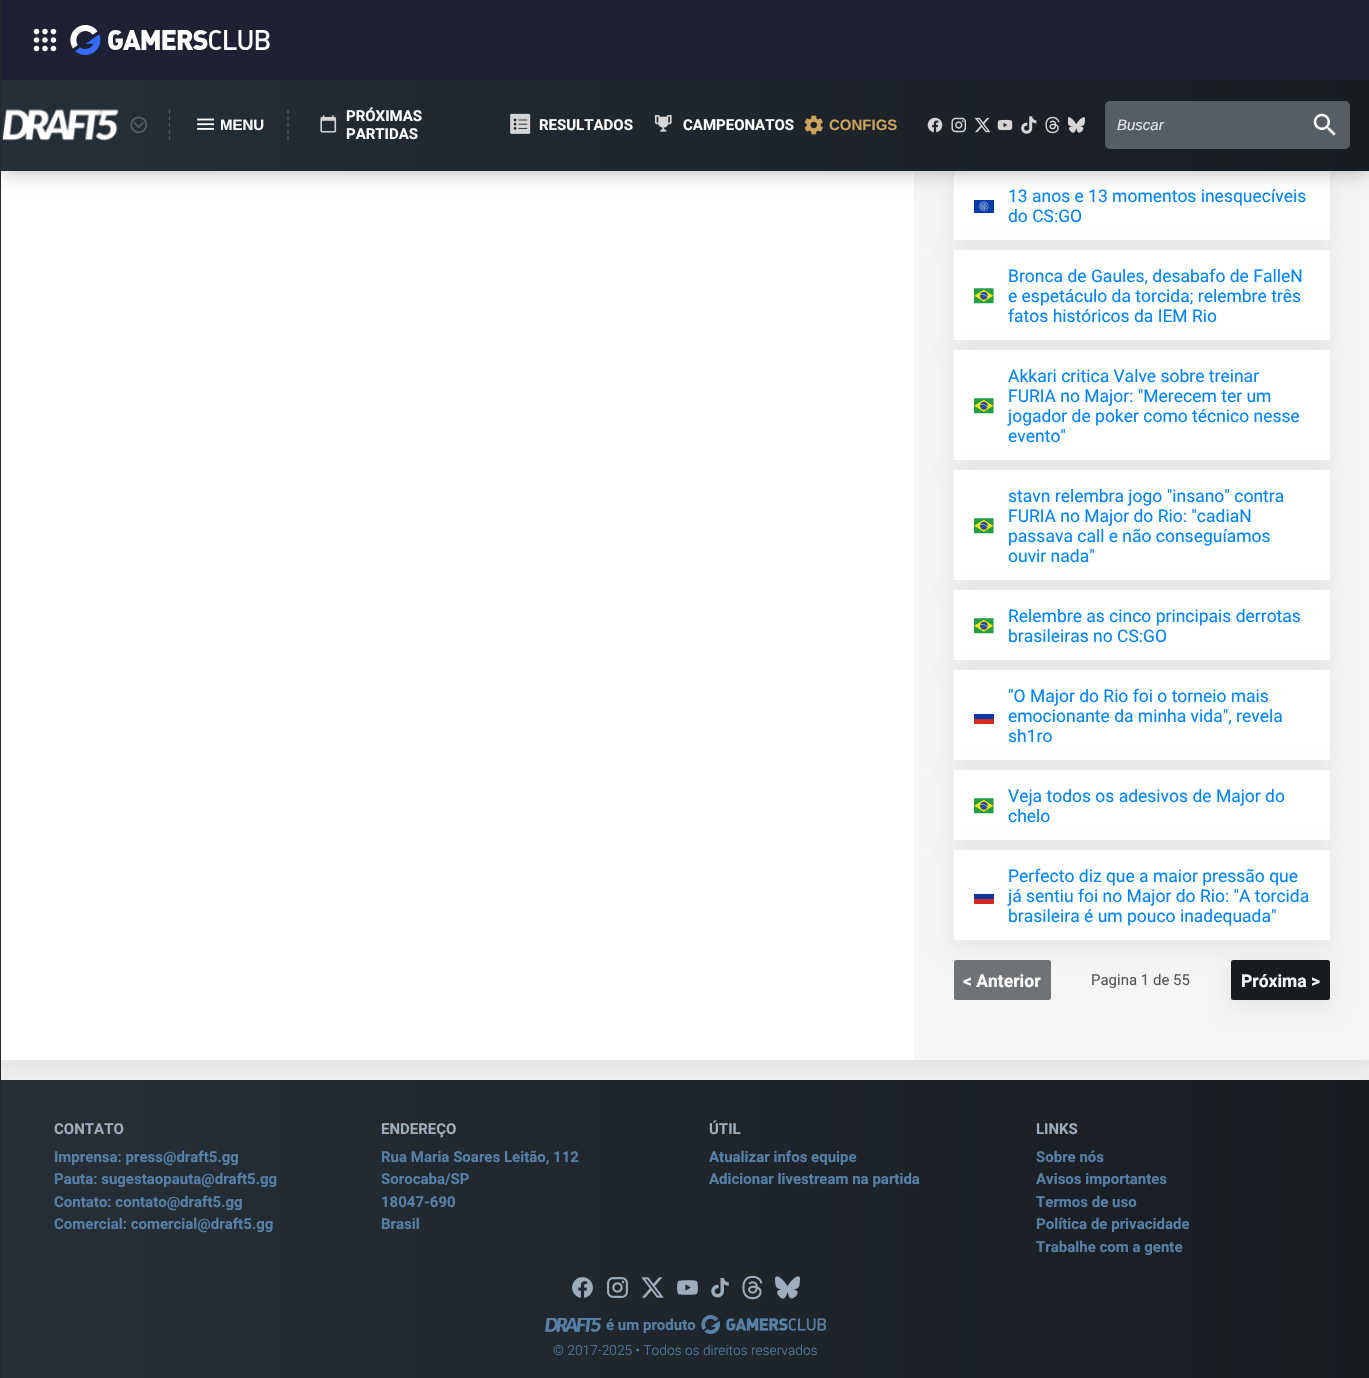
void draw(SkCanvas* canvas) {
  SkPaint paint;
  paint.setAntiAlias(true);
  auto face = [&](const char* family, int weight, float size, bool italic = false) {
    SkFontStyle style(weight, SkFontStyle::kNormal_Width,
      italic ? SkFontStyle::kItalic_Slant : SkFontStyle::kUpright_Slant);
    SkFont result(fontMgr->matchFamilyStyle(family, style), size);
    result.setSubpixel(true);
    return result;
  };
  auto paste = [&](const char* path, float x, float y, float w, float h) {
    auto image = SkImages::DeferredFromEncodedData(SkData::MakeFromFileName(path));
    canvas->drawImageRect(image, SkRect::MakeXYWH(x, y, w, h), SkSamplingOptions());
  };
  auto shape = [&](const char* data, bool evenOdd = false) {
    SkPath result = *SkParsePath::FromSVGString(data);
    if (evenOdd) result.setFillType(SkPathFillType::kEvenOdd);
    return result;
  };
  canvas->clear(0xfff0f0f0);
  paint.setColor(0x12000000);
  paint.setMaskFilter(SkMaskFilter::MakeBlur(kNormal_SkBlurStyle, 9.5f));
  canvas->drawRect(SkRect::MakeXYWH(0, -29, 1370, 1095), paint);
  paint.setMaskFilter(nullptr);
  paint.setColor(0xffffffff);
  canvas->drawRect(SkRect::MakeXYWH(1, 171, 913, 889), paint);
  paint.setColor(0xfff5f5f5);
  canvas->drawRect(SkRect::MakeXYWH(914, 171, 455, 889), paint);
  paint.setColor(0x12000000);
  paint.setMaskFilter(SkMaskFilter::MakeBlur(kNormal_SkBlurStyle, 9.5f));
  canvas->drawRect(SkRect::MakeXYWH(954, 176, 376, 70), paint);
  paint.setMaskFilter(nullptr);
  paint.setColor(0xffffffff);
  canvas->drawRect(SkRect::MakeXYWH(954, 171, 376, 69), paint);
  paste("img/18.png", 974, 200, 20, 13);
  paint.setColor(0x4d000000);
  paint.setMaskFilter(SkMaskFilter::MakeBlur(kNormal_SkBlurStyle, 9.5f));
  canvas->drawRect(SkRect::MakeXYWH(0, 79, 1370, 92), paint);
  paint.setMaskFilter(nullptr);
  paint.setColor(0xff1e2033);
  canvas->drawRect(SkRect::MakeXYWH(1, 0, 1368, 80), paint);
  paint.setColor(0xff292829);
  canvas->drawRect(SkRect::MakeXYWH(0, 0, 1, 1378), paint);
  paste("img/1.png", 33, 28, 24, 24);
  paste("img/2.png", 70, 25, 200, 30);
  {
    const SkColor colors[] = {0xff262f37, 0xff171c21};
    const float stops[] = {0, 1};
    const SkPoint ends[] = {{0, 125}, {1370, 125}};
    paint.setShader(SkGradientShader::MakeLinear(ends, colors, stops, 2, SkTileMode::kClamp));
    paint.setAlpha(255);
  }
  canvas->drawRect(SkRect::MakeXYWH(1, 80, 1368, 91), paint);
  paste("img/3.png", 2, 109, 117, 32);
  paste("img/4.png", 130, 116, 17, 18);
  paint.setStroke(true);
  paint.setStrokeWidth(1.2f);
  paint.setShader(nullptr);
  paint.setColor(0xff545d65);
  paint.setPathEffect(SkDashPathEffect::Make({{3.75f, 2.81f}}, 0));
  canvas->drawPath(shape("M288 110V140"), paint);
  paint.setPathEffect(nullptr);
  paint.setPathEffect(SkDashPathEffect::Make({{3.75f, 2.81f}}, 0));
  canvas->drawPath(shape("M169.5 110V140"), paint);
  paint.setPathEffect(nullptr);
  paste("img/5.png", 197, 118, 17, 12);
  paste("img/6.png", 320, 115, 17, 18);
  paste("img/7.png", 510, 113, 21, 21);
  paste("img/8.png", 654, 115, 18, 17);
  paste("img/9.png", 804, 115, 19, 20);
  paste("img/10.png", 927, 117, 16, 16);
  paste("img/11.png", 951, 117, 16, 16);
  paste("img/12.png", 974, 117, 17, 16);
  paste("img/13.png", 997, 119, 16, 12);
  paste("img/14.png", 1021, 116, 16, 18);
  paste("img/15.png", 1045, 116, 15, 18);
  paste("img/16.png", 1068, 117, 17, 16);
  paint.setStroke(false);
  paint.setColor(0xff555d65);
  canvas->drawRoundRect(SkRect::MakeXYWH(1105, 101, 245, 48), 5, 5, paint);
  paste("img/17.png", 1313, 113, 23, 23);
  paint.setColor(0x12000000);
  paint.setMaskFilter(SkMaskFilter::MakeBlur(kNormal_SkBlurStyle, 9.5f));
  canvas->drawRect(SkRect::MakeXYWH(954, 256, 376, 90), paint);
  paint.setMaskFilter(nullptr);
  paint.setColor(0xffffffff);
  canvas->drawRect(SkRect::MakeXYWH(954, 250, 376, 90), paint);
  paste("img/19.png", 974, 288, 20, 16);
  paint.setColor(0x12000000);
  paint.setMaskFilter(SkMaskFilter::MakeBlur(kNormal_SkBlurStyle, 9.5f));
  canvas->drawRect(SkRect::MakeXYWH(954, 356, 376, 110), paint);
  paint.setMaskFilter(nullptr);
  paint.setColor(0xffffffff);
  canvas->drawRect(SkRect::MakeXYWH(954, 350, 376, 110), paint);
  paste("img/19.png", 974, 398, 20, 16);
  paint.setColor(0x12000000);
  paint.setMaskFilter(SkMaskFilter::MakeBlur(kNormal_SkBlurStyle, 9.5f));
  canvas->drawRect(SkRect::MakeXYWH(954, 476, 376, 110), paint);
  paint.setMaskFilter(nullptr);
  paint.setColor(0xffffffff);
  canvas->drawRect(SkRect::MakeXYWH(954, 470, 376, 110), paint);
  paste("img/19.png", 974, 518, 20, 16);
  paint.setColor(0x12000000);
  paint.setMaskFilter(SkMaskFilter::MakeBlur(kNormal_SkBlurStyle, 9.5f));
  canvas->drawRect(SkRect::MakeXYWH(954, 596, 376, 70), paint);
  paint.setMaskFilter(nullptr);
  paint.setColor(0xffffffff);
  canvas->drawRect(SkRect::MakeXYWH(954, 590, 376, 70), paint);
  paste("img/19.png", 974, 618, 20, 16);
  paint.setColor(0x12000000);
  paint.setMaskFilter(SkMaskFilter::MakeBlur(kNormal_SkBlurStyle, 9.5f));
  canvas->drawRect(SkRect::MakeXYWH(954, 676, 376, 90), paint);
  paint.setMaskFilter(nullptr);
  {
    const struct { float x, y, w, h; SkColor color; } items[] = {
      {954, 670, 376, 90, 0xffffffff},
      {974, 714, 20, 5, 0xff0039a6},
      {974, 719, 20, 5, 0xffd52b1e},
    };
    for (auto [x, y, w, h, color] : items) {
      paint.setColor(color);
      canvas->drawRect(SkRect::MakeXYWH(x, y, w, h), paint);
    }
  }
  paint.setColor(0x12000000);
  paint.setMaskFilter(SkMaskFilter::MakeBlur(kNormal_SkBlurStyle, 9.5f));
  canvas->drawRect(SkRect::MakeXYWH(954, 776, 376, 70), paint);
  paint.setMaskFilter(nullptr);
  paint.setColor(0xffffffff);
  canvas->drawRect(SkRect::MakeXYWH(954, 770, 376, 70), paint);
  paste("img/19.png", 974, 798, 20, 16);
  paint.setColor(0x12000000);
  paint.setMaskFilter(SkMaskFilter::MakeBlur(kNormal_SkBlurStyle, 9.5f));
  canvas->drawRect(SkRect::MakeXYWH(954, 856, 376, 90), paint);
  paint.setMaskFilter(nullptr);
  {
    const struct { float x, y, w, h; SkColor color; } items[] = {
      {954, 850, 376, 90, 0xffffffff},
      {974, 894, 20, 5, 0xff0039a6},
      {974, 899, 20, 5, 0xffd52b1e},
    };
    for (auto [x, y, w, h, color] : items) {
      paint.setColor(color);
      canvas->drawRect(SkRect::MakeXYWH(x, y, w, h), paint);
    }
  }
  paint.setColor(0xff707376);
  canvas->drawRoundRect(SkRect::MakeXYWH(954, 960, 97, 40), 2.5f, 2.5f, paint);
  paint.setColor(0x12000000);
  paint.setMaskFilter(SkMaskFilter::MakeBlur(kNormal_SkBlurStyle, 9.5f));
  canvas->drawRoundRect(SkRect::MakeXYWH(1231, 966, 99, 40), 2.5f, 2.5f, paint);
  paint.setMaskFilter(nullptr);
  paint.setColor(0xff171c21);
  canvas->drawRoundRect(SkRect::MakeXYWH(1231, 960, 99, 40), 2.5f, 2.5f, paint);
  {
    const SkColor colors[] = {0xff262f37, 0xff171c21};
    const float stops[] = {0, 1};
    const SkPoint ends[] = {{0, 1259}, {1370, 1259}};
    paint.setShader(SkGradientShader::MakeLinear(ends, colors, stops, 2, SkTileMode::kClamp));
    paint.setAlpha(255);
  }
  canvas->drawRect(SkRect::MakeXYWH(1, 1080, 1368, 298), paint);
  paste("img/20.png", 572, 1277, 21, 21);
  paste("img/21.png", 607, 1277, 21, 21);
  paste("img/22.png", 641, 1277, 23, 21);
  paste("img/23.png", 677, 1280, 21, 15);
  paste("img/24.png", 711, 1278, 18, 20);
  paste("img/25.png", 742, 1275, 21, 25);
  paste("img/26.png", 775, 1276, 25, 23);
  paste("img/27.png", 545, 1318, 56, 14);
  paste("img/28.png", 701, 1315, 125, 19);
  auto f0 = face("Liberation Sans", 700, 15);
  paint.setShader(nullptr);
  paint.setColor(0xfffbfbfb);
  canvas->drawString("MENU", 220, 130, f0, paint);
  auto f1 = face("Roboto", 700, 15);
  {
    const struct { const char* s; float x, y; } items[] = {
      {"PRÓXIMAS", 346, 121},
      {"PARTIDAS", 346, 139},
      {"RESULTADOS", 539, 130},
      {"CAMPEONATOS", 683, 130},
    };
    for (auto [s, x, y] : items) {
      canvas->drawString(s, x, y, f1, paint);
    }
  }
  paint.setColor(0xffcca25f);
  canvas->drawString("CONFIGS", 829, 130, f0, paint);
  auto f2 = face("Liberation Sans", 400, 15, true);
  paint.setColor(0xffe5e5e5);
  canvas->drawString("Buscar", 1117, 130, f2, paint);
  auto f3 = face("Roboto", 400, 17.5f);
  paint.setColor(0xff0084ff);
  {
    const struct { const char* s; float x, y; } items[] = {
      {"13 anos e 13 momentos inesquecíveis", 1008, 202},
      {"do CS:GO", 1008, 222},
      {"Bronca de Gaules, desabafo de FalleN", 1008, 282},
      {"e espetáculo da torcida; relembre três", 1008, 302},
      {"fatos históricos da IEM Rio", 1008, 322},
      {"Akkari critica Valve sobre treinar", 1008, 382},
      {"FURIA no Major: \"Merecem ter um", 1008, 402},
      {"jogador de poker como técnico nesse", 1008, 422},
      {"evento\"", 1008, 442},
      {"stavn relembra jogo \"insano\" contra", 1008, 502},
      {"FURIA no Major do Rio: \"cadiaN", 1008, 522},
      {"passava call e não conseguíamos", 1008, 542},
      {"ouvir nada\"", 1008, 562},
      {"Relembre as cinco principais derrotas", 1008, 622},
      {"brasileiras no CS:GO", 1008, 642},
      {"\"O Major do Rio foi o torneio mais", 1008, 702},
      {"emocionante da minha vida\", revela", 1008, 722},
      {"sh1ro", 1008, 742},
      {"Veja todos os adesivos de Major do", 1008, 802},
      {"chelo", 1008, 822},
      {"Perfecto diz que a maior pressão que", 1008, 882},
      {"já sentiu foi no Major do Rio: \"A torcida", 1008, 902},
      {"brasileira é um pouco inadequada\"", 1008, 922},
    };
    for (auto [s, x, y] : items) {
      canvas->drawString(s, x, y, f3, paint);
    }
  }
  auto f4 = face("Roboto", 700, 17.5f);
  paint.setColor(0xfffbfbfb);
  canvas->drawString("< Anterior", 963, 987, f4, paint);
  auto f5 = face("Roboto", 400, 15);
  paint.setColor(0xff565656);
  canvas->drawString("Pagina 1 de 55", 1091, 985, f5, paint);
  paint.setColor(0xfffbfbfb);
  canvas->drawString("Próxima >", 1241, 987, f4, paint);
  paint.setColor(0xff9eadbc);
  canvas->drawString("CONTATO", 54, 1134, f1, paint);
  paint.setColor(0xff5780a8);
  {
    const struct { const char* s; float x, y; } items[] = {
      {"Imprensa: press@draft5.gg", 54, 1162},
      {"Pauta: sugestaopauta@draft5.gg", 54, 1184},
      {"Contato: contato@draft5.gg", 54, 1207},
      {"Comercial: comercial@draft5.gg", 54, 1229},
    };
    for (auto [s, x, y] : items) {
      canvas->drawString(s, x, y, f1, paint);
    }
  }
  paint.setColor(0xff9eadbc);
  canvas->drawString("ENDEREÇO", 381, 1134, f1, paint);
  paint.setColor(0xff5780a8);
  {
    const struct { const char* s; float x, y; } items[] = {
      {"Rua Maria Soares Leitão, 112", 381, 1162},
      {"Sorocaba/SP", 381, 1184},
      {"18047-690", 381, 1207},
      {"Brasil", 381, 1229},
    };
    for (auto [s, x, y] : items) {
      canvas->drawString(s, x, y, f1, paint);
    }
  }
  paint.setColor(0xff9eadbc);
  canvas->drawString("ÚTIL", 709, 1134, f1, paint);
  paint.setColor(0xff5780a8);
  canvas->drawString("Atualizar infos equipe", 709, 1162, f1, paint);
  canvas->drawString("Adicionar livestream na partida", 709, 1184, f1, paint);
  paint.setColor(0xff9eadbc);
  canvas->drawString("LINKS", 1036, 1134, f1, paint);
  paint.setColor(0xff5780a8);
  {
    const struct { const char* s; float x, y; } items[] = {
      {"Sobre nós", 1036, 1162},
      {"Avisos importantes", 1036, 1184},
      {"Termos de uso", 1036, 1207},
      {"Política de privacidade", 1036, 1229},
      {"Trabalhe com a gente", 1036, 1252},
      {"é um produto", 606, 1330},
    };
    for (auto [s, x, y] : items) {
      canvas->drawString(s, x, y, f1, paint);
    }
  }
  auto f6 = face("Roboto", 300, 13.75f);
  canvas->drawString("© 2017-2025 • Todos os direitos reservados", 553, 1355, f6, paint);
}
